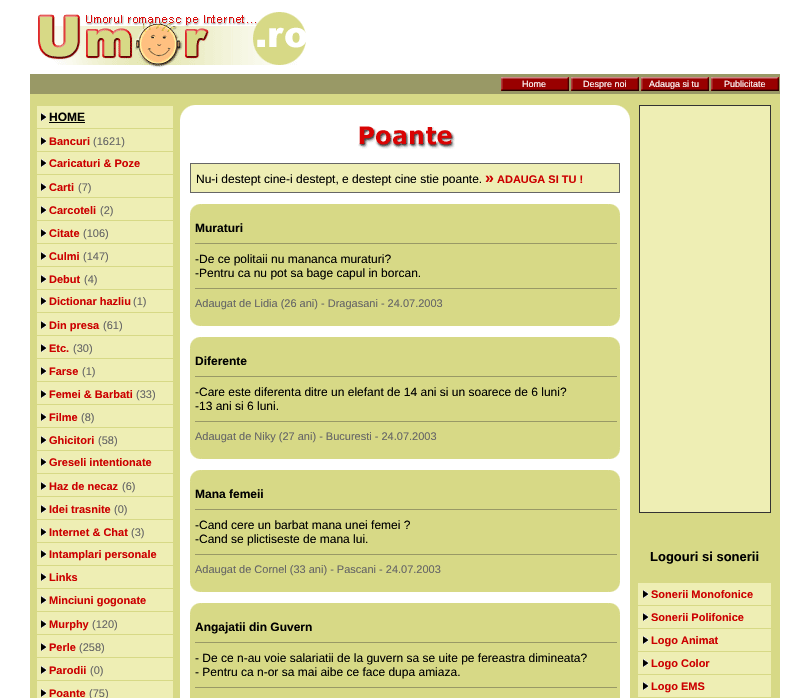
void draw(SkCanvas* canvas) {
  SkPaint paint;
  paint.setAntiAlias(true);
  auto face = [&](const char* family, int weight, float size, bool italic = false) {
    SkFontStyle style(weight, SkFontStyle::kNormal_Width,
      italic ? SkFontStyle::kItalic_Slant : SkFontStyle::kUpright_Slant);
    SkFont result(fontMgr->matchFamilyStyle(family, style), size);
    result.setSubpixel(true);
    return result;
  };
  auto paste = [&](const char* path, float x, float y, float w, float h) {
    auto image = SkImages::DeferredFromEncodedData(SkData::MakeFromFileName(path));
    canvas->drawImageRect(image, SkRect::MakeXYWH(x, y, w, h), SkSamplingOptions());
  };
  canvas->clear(0xffffffff);
  paste("img/1.png", 38, 12, 268, 56);
  paint.setColor(0xff999966);
  canvas->drawRect(SkRect::MakeXYWH(30, 74, 750, 20), paint);
  paste("img/2.png", 501, 77, 68, 14);
  paste("img/2.png", 571, 77, 68, 14);
  paste("img/2.png", 641, 77, 68, 14);
  paste("img/2.png", 711, 77, 68, 14);
  {
    const struct { float x, y, w, h; SkColor color; } items[] = {
      {30, 94, 750, 11, 0xffd7d986},
      {30, 105, 150, 593, 0xffd7d986},
      {37, 106, 136, 22, 0xffeeeeb4},
    };
    for (auto [x, y, w, h, color] : items) {
      paint.setColor(color);
      canvas->drawRect(SkRect::MakeXYWH(x, y, w, h), paint);
    }
  }
  paste("img/3.png", 41, 113, 5, 8);
  paint.setColor(0xff000000);
  canvas->drawRect(SkRect::MakeXYWH(49, 122, 36, 1), paint);
  paint.setColor(0xffeeeeb4);
  canvas->drawRect(SkRect::MakeXYWH(37, 129, 136, 22), paint);
  paste("img/3.png", 41, 137, 5, 8);
  canvas->drawRect(SkRect::MakeXYWH(37, 152, 136, 22), paint);
  paste("img/3.png", 41, 159, 5, 8);
  canvas->drawRect(SkRect::MakeXYWH(37, 175, 136, 22), paint);
  paste("img/3.png", 41, 183, 5, 8);
  canvas->drawRect(SkRect::MakeXYWH(37, 198, 136, 22), paint);
  paste("img/3.png", 41, 206, 5, 8);
  canvas->drawRect(SkRect::MakeXYWH(37, 221, 136, 22), paint);
  paste("img/3.png", 41, 229, 5, 8);
  canvas->drawRect(SkRect::MakeXYWH(37, 244, 136, 22), paint);
  paste("img/3.png", 41, 252, 5, 8);
  canvas->drawRect(SkRect::MakeXYWH(37, 267, 136, 22), paint);
  paste("img/3.png", 41, 275, 5, 8);
  canvas->drawRect(SkRect::MakeXYWH(37, 290, 136, 22), paint);
  paste("img/3.png", 41, 297, 5, 8);
  canvas->drawRect(SkRect::MakeXYWH(37, 313, 136, 22), paint);
  paste("img/3.png", 41, 321, 5, 8);
  canvas->drawRect(SkRect::MakeXYWH(37, 336, 136, 22), paint);
  paste("img/3.png", 41, 344, 5, 8);
  canvas->drawRect(SkRect::MakeXYWH(37, 359, 136, 22), paint);
  paste("img/3.png", 41, 367, 5, 8);
  canvas->drawRect(SkRect::MakeXYWH(37, 382, 136, 22), paint);
  paste("img/3.png", 41, 390, 5, 8);
  canvas->drawRect(SkRect::MakeXYWH(37, 405, 136, 22), paint);
  paste("img/3.png", 41, 413, 5, 8);
  canvas->drawRect(SkRect::MakeXYWH(37, 428, 136, 22), paint);
  paste("img/3.png", 41, 436, 5, 8);
  canvas->drawRect(SkRect::MakeXYWH(37, 451, 136, 22), paint);
  paste("img/3.png", 41, 458, 5, 8);
  canvas->drawRect(SkRect::MakeXYWH(37, 474, 136, 22), paint);
  paste("img/3.png", 41, 482, 5, 8);
  canvas->drawRect(SkRect::MakeXYWH(37, 497, 136, 22), paint);
  paste("img/3.png", 41, 505, 5, 8);
  canvas->drawRect(SkRect::MakeXYWH(37, 520, 136, 22), paint);
  paste("img/3.png", 41, 528, 5, 8);
  canvas->drawRect(SkRect::MakeXYWH(37, 543, 136, 22), paint);
  paste("img/3.png", 41, 550, 5, 8);
  canvas->drawRect(SkRect::MakeXYWH(37, 566, 136, 22), paint);
  paste("img/3.png", 41, 573, 5, 8);
  canvas->drawRect(SkRect::MakeXYWH(37, 589, 136, 22), paint);
  paste("img/3.png", 41, 596, 5, 8);
  canvas->drawRect(SkRect::MakeXYWH(37, 612, 136, 22), paint);
  paste("img/3.png", 41, 620, 5, 8);
  canvas->drawRect(SkRect::MakeXYWH(37, 635, 136, 22), paint);
  paste("img/3.png", 41, 643, 5, 8);
  canvas->drawRect(SkRect::MakeXYWH(37, 658, 136, 22), paint);
  paste("img/3.png", 41, 666, 5, 8);
  canvas->drawRect(SkRect::MakeXYWH(37, 681, 136, 17), paint);
  paste("img/3.png", 41, 689, 5, 8);
  paste("img/4.png", 180, 105, 15, 15);
  paste("img/5.png", 615, 105, 15, 15);
  paste("img/6.png", 358, 126, 97, 23);
  paint.setColor(0xff666666);
  canvas->drawRect(SkRect::MakeXYWH(190, 163, 430, 30), paint);
  paint.setColor(0xffeeeeb4);
  canvas->drawRect(SkRect::MakeXYWH(191, 164, 428, 28), paint);
  paste("img/7.png", 190, 204, 12, 12);
  paint.setColor(0xffd7d986);
  canvas->drawRect(SkRect::MakeXYWH(202, 204, 406, 12), paint);
  paste("img/8.png", 608, 204, 12, 12);
  {
    const struct { float x, y, w, h; SkColor color; } items[] = {
      {190, 216, 430, 98, 0xffd7d986},
      {195, 243, 422, 1, 0xff999966},
      {195, 288, 422, 1, 0xff999966},
    };
    for (auto [x, y, w, h, color] : items) {
      paint.setColor(color);
      canvas->drawRect(SkRect::MakeXYWH(x, y, w, h), paint);
    }
  }
  paste("img/9.png", 190, 314, 12, 12);
  paint.setColor(0xffd7d986);
  canvas->drawRect(SkRect::MakeXYWH(202, 314, 406, 12), paint);
  paste("img/10.png", 608, 314, 12, 12);
  paste("img/7.png", 190, 337, 12, 12);
  canvas->drawRect(SkRect::MakeXYWH(202, 337, 406, 12), paint);
  paste("img/8.png", 608, 337, 12, 12);
  {
    const struct { float x, y, w, h; SkColor color; } items[] = {
      {190, 349, 430, 98, 0xffd7d986},
      {195, 376, 422, 1, 0xff999966},
      {195, 421, 422, 1, 0xff999966},
    };
    for (auto [x, y, w, h, color] : items) {
      paint.setColor(color);
      canvas->drawRect(SkRect::MakeXYWH(x, y, w, h), paint);
    }
  }
  paste("img/9.png", 190, 447, 12, 12);
  paint.setColor(0xffd7d986);
  canvas->drawRect(SkRect::MakeXYWH(202, 447, 406, 12), paint);
  paste("img/10.png", 608, 447, 12, 12);
  paste("img/7.png", 190, 470, 12, 12);
  canvas->drawRect(SkRect::MakeXYWH(202, 470, 406, 12), paint);
  paste("img/8.png", 608, 470, 12, 12);
  {
    const struct { float x, y, w, h; SkColor color; } items[] = {
      {190, 482, 430, 98, 0xffd7d986},
      {195, 509, 422, 1, 0xff999966},
      {195, 554, 422, 1, 0xff999966},
    };
    for (auto [x, y, w, h, color] : items) {
      paint.setColor(color);
      canvas->drawRect(SkRect::MakeXYWH(x, y, w, h), paint);
    }
  }
  paste("img/9.png", 190, 580, 12, 12);
  paint.setColor(0xffd7d986);
  canvas->drawRect(SkRect::MakeXYWH(202, 580, 406, 12), paint);
  paste("img/10.png", 608, 580, 12, 12);
  paste("img/7.png", 190, 603, 12, 12);
  canvas->drawRect(SkRect::MakeXYWH(202, 603, 406, 12), paint);
  paste("img/8.png", 608, 603, 12, 12);
  {
    const struct { float x, y, w, h; SkColor color; } items[] = {
      {190, 615, 430, 83, 0xffd7d986},
      {195, 642, 422, 1, 0xff999966},
      {195, 687, 422, 1, 0xff999966},
      {630, 105, 150, 593, 0xffd7d986},
      {639, 105, 132, 408, 0xff333333},
      {640, 106, 130, 406, 0xffeeeeb4},
      {638, 583, 133, 22, 0xffeeeeb4},
    };
    for (auto [x, y, w, h, color] : items) {
      paint.setColor(color);
      canvas->drawRect(SkRect::MakeXYWH(x, y, w, h), paint);
    }
  }
  paste("img/3.png", 643, 590, 5, 8);
  canvas->drawRect(SkRect::MakeXYWH(638, 606, 133, 22), paint);
  paste("img/3.png", 643, 613, 5, 8);
  canvas->drawRect(SkRect::MakeXYWH(638, 629, 133, 22), paint);
  paste("img/3.png", 643, 636, 5, 8);
  canvas->drawRect(SkRect::MakeXYWH(638, 652, 133, 22), paint);
  paste("img/3.png", 643, 659, 5, 8);
  canvas->drawRect(SkRect::MakeXYWH(638, 675, 133, 22), paint);
  paste("img/3.png", 643, 682, 5, 8);
  auto f0 = face("Liberation Sans", 400, 9);
  paint.setColor(0xffffffff);
  {
    const struct { const char* s; float x, y; } items[] = {
      {"Home", 522, 87},
      {"Despre noi", 583, 87},
      {"Adauga si tu", 649, 87},
      {"Publicitate", 724, 87},
    };
    for (auto [s, x, y] : items) {
      canvas->drawString(s, x, y, f0, paint);
    }
  }
  auto f1 = face("Liberation Sans", 700, 12);
  paint.setColor(0xff000000);
  canvas->drawString("HOME", 49, 121, f1, paint);
  auto f2 = face("Liberation Sans", 700, 11);
  paint.setColor(0xffcc0000);
  canvas->drawString("Bancuri", 49, 145, f2, paint);
  auto f3 = face("Liberation Sans", 400, 11);
  paint.setColor(0xff666666);
  canvas->drawString("(1621)", 93, 145, f3, paint);
  paint.setColor(0xffcc0000);
  canvas->drawString("Caricaturi & Poze", 49, 167, f2, paint);
  canvas->drawString("Carti", 49, 191, f2, paint);
  paint.setColor(0xff666666);
  canvas->drawString("(7)", 78, 191, f3, paint);
  paint.setColor(0xffcc0000);
  canvas->drawString("Carcoteli", 49, 214, f2, paint);
  paint.setColor(0xff666666);
  canvas->drawString("(2)", 100, 214, f3, paint);
  paint.setColor(0xffcc0000);
  canvas->drawString("Citate", 49, 237, f2, paint);
  paint.setColor(0xff666666);
  canvas->drawString("(106)", 83, 237, f3, paint);
  paint.setColor(0xffcc0000);
  canvas->drawString("Culmi", 49, 260, f2, paint);
  paint.setColor(0xff666666);
  canvas->drawString("(147)", 83, 260, f3, paint);
  paint.setColor(0xffcc0000);
  canvas->drawString("Debut", 49, 283, f2, paint);
  paint.setColor(0xff666666);
  canvas->drawString("(4)", 84, 283, f3, paint);
  paint.setColor(0xffcc0000);
  canvas->drawString("Dictionar hazliu", 49, 305, f2, paint);
  paint.setColor(0xff666666);
  canvas->drawString("(1)", 133, 305, f3, paint);
  paint.setColor(0xffcc0000);
  canvas->drawString("Din presa", 49, 329, f2, paint);
  paint.setColor(0xff666666);
  canvas->drawString("(61)", 103, 329, f3, paint);
  paint.setColor(0xffcc0000);
  canvas->drawString("Etc.", 49, 352, f2, paint);
  paint.setColor(0xff666666);
  canvas->drawString("(30)", 73, 352, f3, paint);
  paint.setColor(0xffcc0000);
  canvas->drawString("Farse", 49, 375, f2, paint);
  paint.setColor(0xff666666);
  canvas->drawString("(1)", 82, 375, f3, paint);
  paint.setColor(0xffcc0000);
  canvas->drawString("Femei & Barbati", 49, 398, f2, paint);
  paint.setColor(0xff666666);
  canvas->drawString("(33)", 136, 398, f3, paint);
  paint.setColor(0xffcc0000);
  canvas->drawString("Filme", 49, 421, f2, paint);
  paint.setColor(0xff666666);
  canvas->drawString("(8)", 81, 421, f3, paint);
  paint.setColor(0xffcc0000);
  canvas->drawString("Ghicitori", 49, 444, f2, paint);
  paint.setColor(0xff666666);
  canvas->drawString("(58)", 98, 444, f3, paint);
  paint.setColor(0xffcc0000);
  canvas->drawString("Greseli intentionate", 49, 466, f2, paint);
  canvas->drawString("Haz de necaz", 49, 490, f2, paint);
  paint.setColor(0xff666666);
  canvas->drawString("(6)", 122, 490, f3, paint);
  paint.setColor(0xffcc0000);
  canvas->drawString("Idei trasnite", 49, 513, f2, paint);
  paint.setColor(0xff666666);
  canvas->drawString("(0)", 114, 513, f3, paint);
  paint.setColor(0xffcc0000);
  canvas->drawString("Internet & Chat", 49, 536, f2, paint);
  paint.setColor(0xff666666);
  canvas->drawString("(3)", 131, 536, f3, paint);
  paint.setColor(0xffcc0000);
  {
    const struct { const char* s; float x, y; } items[] = {
      {"Intamplari personale", 49, 558},
      {"Links", 49, 581},
      {"Minciuni gogonate", 49, 604},
      {"Murphy", 49, 628},
    };
    for (auto [s, x, y] : items) {
      canvas->drawString(s, x, y, f2, paint);
    }
  }
  paint.setColor(0xff666666);
  canvas->drawString("(120)", 92, 628, f3, paint);
  paint.setColor(0xffcc0000);
  canvas->drawString("Perle", 49, 651, f2, paint);
  paint.setColor(0xff666666);
  canvas->drawString("(258)", 79, 651, f3, paint);
  paint.setColor(0xffcc0000);
  canvas->drawString("Parodii", 49, 674, f2, paint);
  paint.setColor(0xff666666);
  canvas->drawString("(0)", 90, 674, f3, paint);
  paint.setColor(0xffcc0000);
  canvas->drawString("Poante", 49, 697, f2, paint);
  paint.setColor(0xff666666);
  canvas->drawString("(75)", 89, 697, f3, paint);
  auto f4 = face("Liberation Sans", 400, 12);
  paint.setColor(0xff000000);
  canvas->drawString("Nu-i destept cine-i destept, e destept cine stie poante.", 196, 183, f4, paint);
  auto f5 = face("Liberation Sans", 700, 16);
  paint.setColor(0xffcc0000);
  canvas->drawString("»", 485, 183, f5, paint);
  canvas->drawString("ADAUGA SI TU !", 497, 183, f2, paint);
  paint.setColor(0xff000000);
  canvas->drawString("Muraturi", 195, 232, f1, paint);
  canvas->drawString("-De ce politaii nu mananca muraturi?", 195, 263, f4, paint);
  canvas->drawString("-Pentru ca nu pot sa bage capul in borcan.", 195, 277, f4, paint);
  paint.setColor(0xff666666);
  canvas->drawString("Adaugat de Lidia (26 ani) - Dragasani - 24.07.2003", 195, 307, f3, paint);
  paint.setColor(0xff000000);
  canvas->drawString("Diferente", 195, 365, f1, paint);
  canvas->drawString("-Care este diferenta ditre un elefant de 14 ani si un soarece de 6 luni?", 195, 396, f4, paint);
  canvas->drawString("-13 ani si 6 luni.", 195, 410, f4, paint);
  paint.setColor(0xff666666);
  canvas->drawString("Adaugat de Niky (27 ani) - Bucuresti - 24.07.2003", 195, 440, f3, paint);
  paint.setColor(0xff000000);
  canvas->drawString("Mana femeii", 195, 498, f1, paint);
  canvas->drawString("-Cand cere un barbat mana unei femei ?", 195, 529, f4, paint);
  canvas->drawString("-Cand se plictiseste de mana lui.", 195, 543, f4, paint);
  paint.setColor(0xff666666);
  canvas->drawString("Adaugat de Cornel (33 ani) - Pascani - 24.07.2003", 195, 573, f3, paint);
  paint.setColor(0xff000000);
  canvas->drawString("Angajatii din Guvern", 195, 631, f1, paint);
  canvas->drawString("- De ce n-au voie salariatii de la guvern sa se uite pe fereastra dimineata?", 195, 662, f4, paint);
  canvas->drawString("- Pentru ca n-or sa mai aibe ce face dupa amiaza.", 195, 676, f4, paint);
  auto f6 = face("Liberation Sans", 700, 13);
  canvas->drawString("Logouri si sonerii", 650, 561, f6, paint);
  paint.setColor(0xffcc0000);
  {
    const struct { const char* s; float x, y; } items[] = {
      {"Sonerii Monofonice", 651, 598},
      {"Sonerii Polifonice", 651, 621},
      {"Logo Animat", 651, 644},
      {"Logo Color", 651, 667},
      {"Logo EMS", 651, 690},
    };
    for (auto [s, x, y] : items) {
      canvas->drawString(s, x, y, f2, paint);
    }
  }
}
